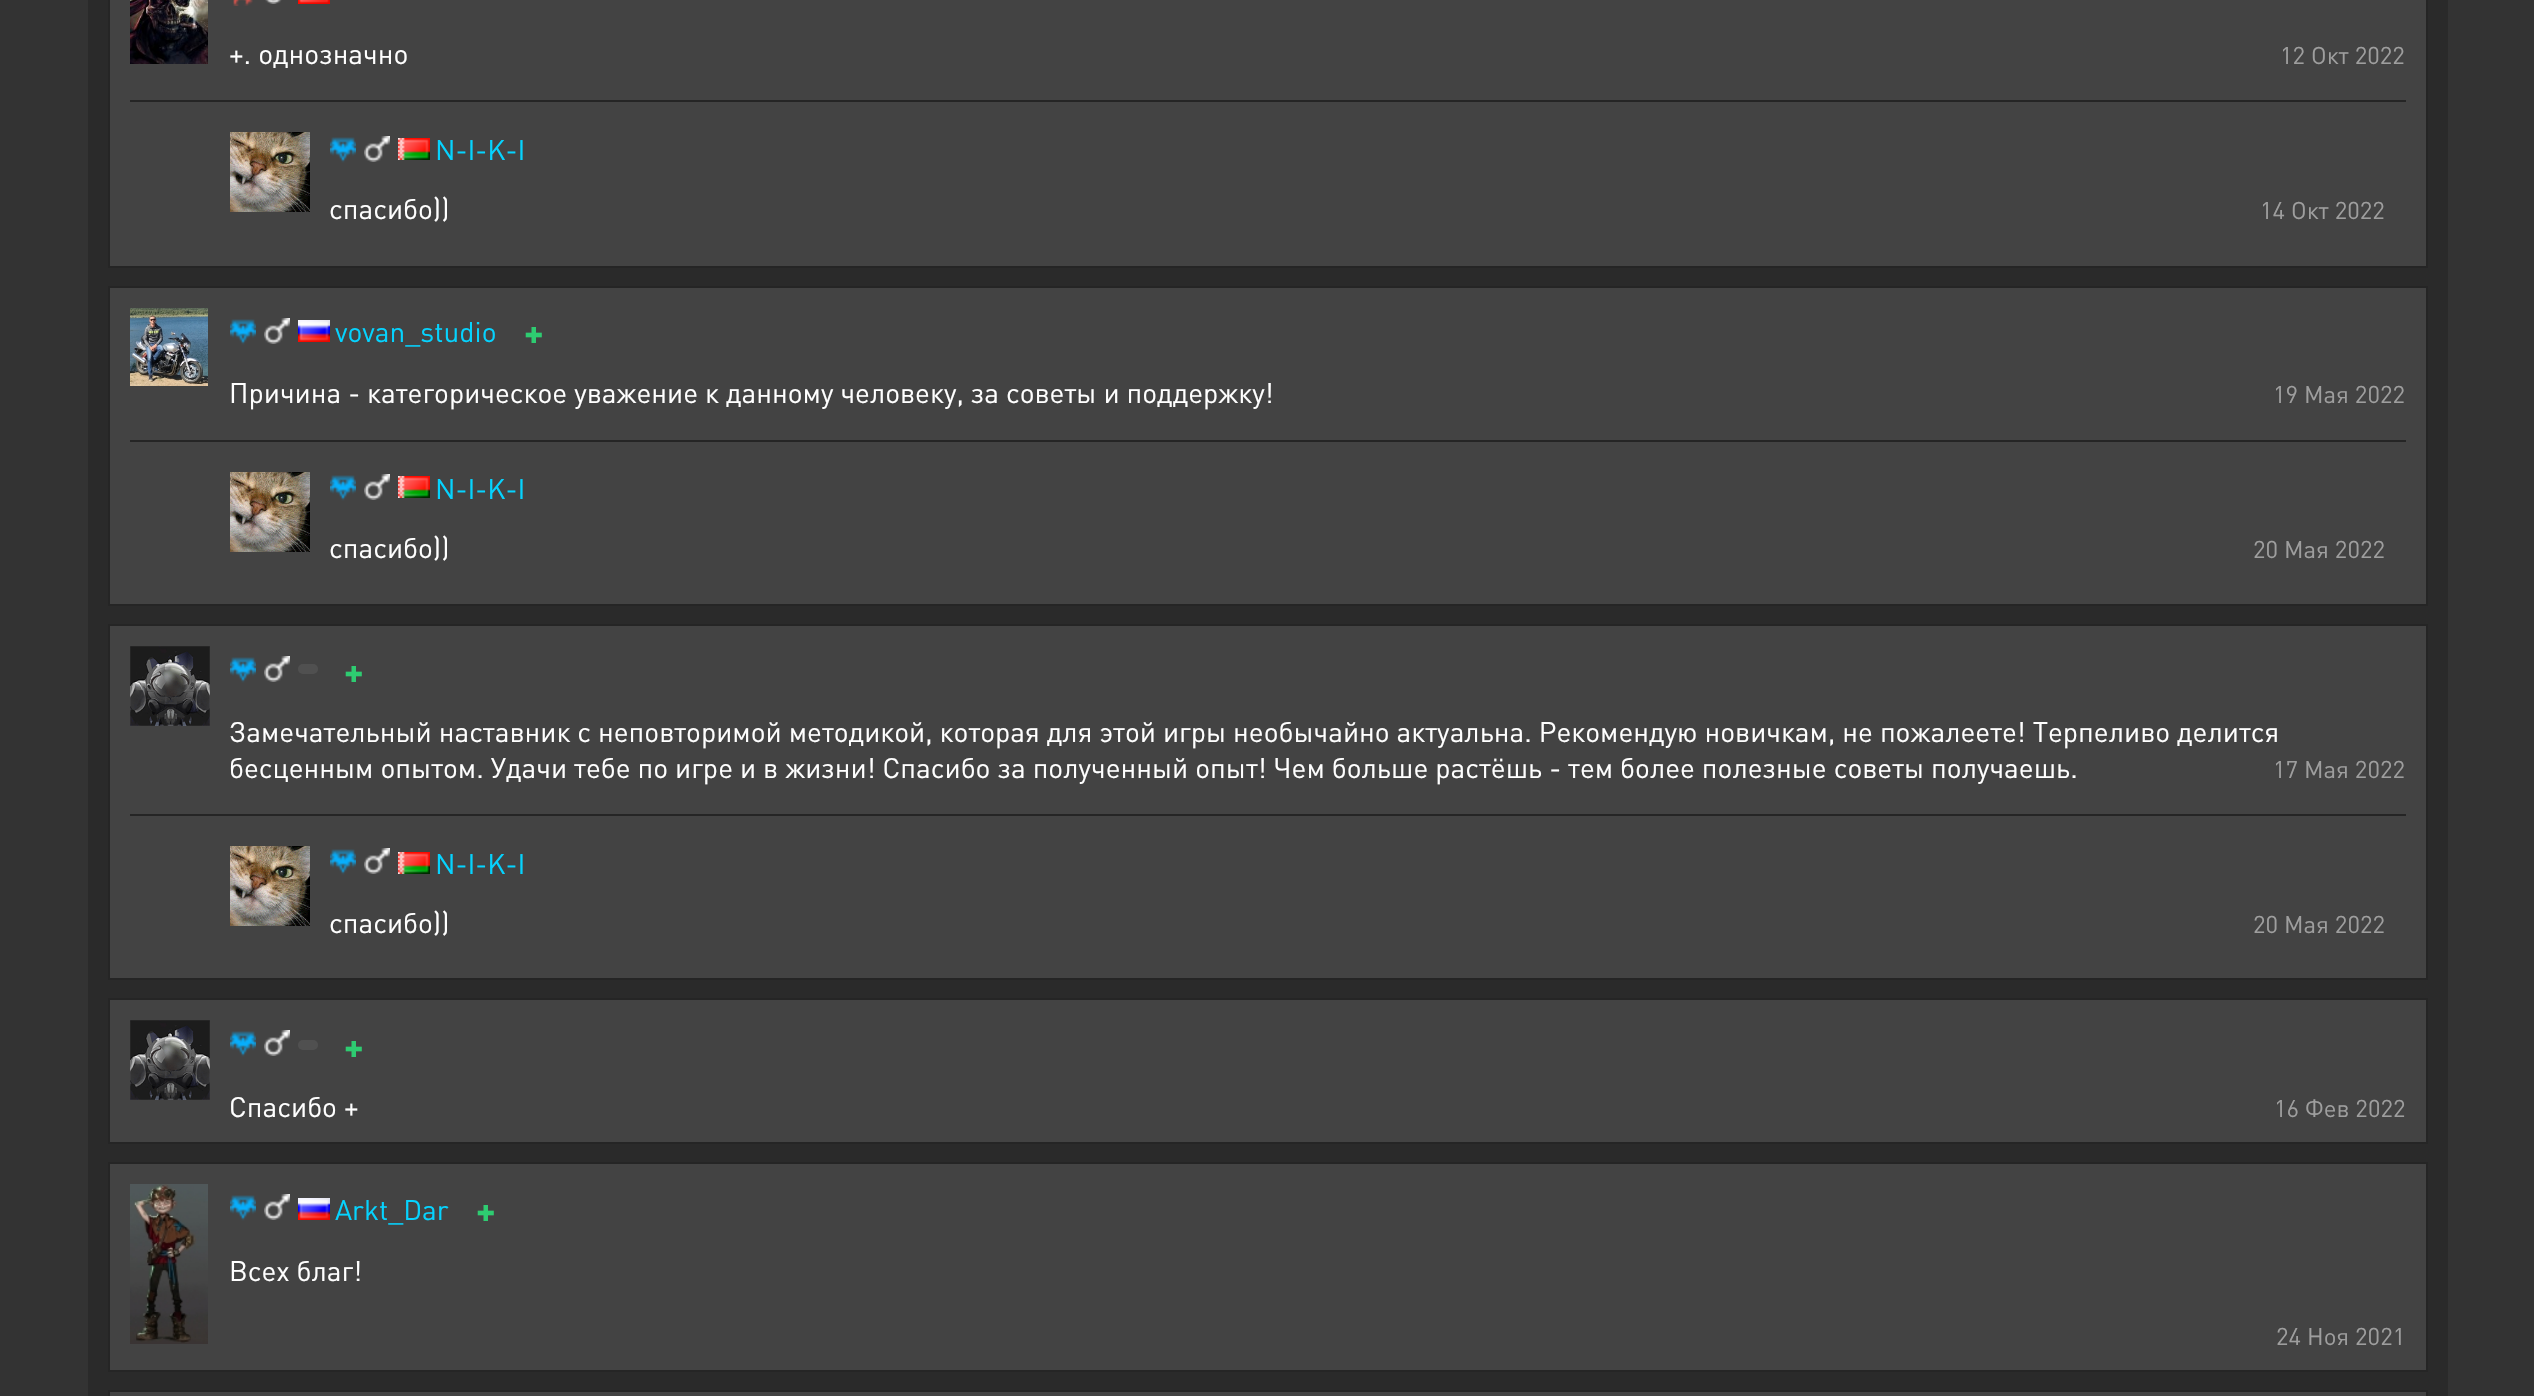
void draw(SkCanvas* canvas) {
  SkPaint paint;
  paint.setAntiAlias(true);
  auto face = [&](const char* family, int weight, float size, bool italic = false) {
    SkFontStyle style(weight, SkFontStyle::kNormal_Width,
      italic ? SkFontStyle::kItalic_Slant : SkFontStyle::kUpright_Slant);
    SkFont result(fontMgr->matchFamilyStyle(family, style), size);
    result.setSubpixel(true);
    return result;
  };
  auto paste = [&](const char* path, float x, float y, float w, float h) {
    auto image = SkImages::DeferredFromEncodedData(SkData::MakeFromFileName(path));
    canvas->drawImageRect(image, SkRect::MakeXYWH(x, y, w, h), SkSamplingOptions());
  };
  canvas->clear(0xff333333);
  paint.setColor(0xff2a2a2a);
  canvas->drawRect(SkRect::MakeXYWH(88, 0, 2360, 1396), paint);
  paint.setColor(0xff434343);
  canvas->drawRect(SkRect::MakeXYWH(109, -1, 2318, 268), paint);
  paint.setStroke(true);
  paint.setStrokeWidth(2);
  paint.setColor(0xff252525);
  canvas->drawRect(SkRect::MakeXYWH(109, -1, 2318, 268), paint);
  paste("img/1.png", 130, 0, 78, 64);
  paste("img/2.png", 233, 0, 20, 6);
  paste("img/3.png", 265, 0, 17, 4);
  paste("img/4.png", 298, 0, 32, 4);
  paint.setStroke(false);
  canvas->drawRect(SkRect::MakeXYWH(130, 100, 2276, 2), paint);
  paste("img/5.png", 230, 132, 80, 80);
  paste("img/6.png", 330, 137, 26, 26);
  paste("img/7.png", 364, 136, 26, 26);
  paste("img/8.png", 398, 138, 32, 22);
  paint.setColor(0xff434343);
  canvas->drawRect(SkRect::MakeXYWH(109, 287, 2318, 318), paint);
  paint.setStroke(true);
  paint.setColor(0xff252525);
  canvas->drawRect(SkRect::MakeXYWH(109, 287, 2318, 318), paint);
  paste("img/9.png", 130, 308, 78, 78);
  paste("img/6.png", 230, 319, 26, 26);
  paste("img/7.png", 264, 318, 26, 26);
  paste("img/10.png", 298, 320, 32, 22);
  paint.setStroke(false);
  canvas->drawRect(SkRect::MakeXYWH(130, 440, 2276, 2), paint);
  paste("img/11.png", 230, 472, 80, 80);
  paste("img/6.png", 330, 475, 26, 26);
  paste("img/7.png", 364, 474, 26, 26);
  paste("img/8.png", 398, 476, 32, 22);
  paint.setColor(0xff434343);
  canvas->drawRect(SkRect::MakeXYWH(109, 625, 2318, 354), paint);
  paint.setStroke(true);
  paint.setColor(0xff252525);
  canvas->drawRect(SkRect::MakeXYWH(109, 625, 2318, 354), paint);
  paste("img/12.png", 130, 646, 80, 80);
  paste("img/6.png", 230, 657, 26, 26);
  paste("img/7.png", 264, 656, 26, 26);
  paint.setStroke(false);
  paint.setColor(0xff505050);
  canvas->drawRoundRect(SkRect::MakeXYWH(298, 664, 20, 10), 5, 5, paint);
  paint.setColor(0xff252525);
  canvas->drawRect(SkRect::MakeXYWH(130, 814, 2276, 2), paint);
  paste("img/13.png", 230, 846, 80, 80);
  paste("img/6.png", 330, 849, 26, 26);
  paste("img/7.png", 364, 848, 26, 26);
  paste("img/8.png", 398, 852, 32, 22);
  paint.setColor(0xff434343);
  canvas->drawRect(SkRect::MakeXYWH(109, 999, 2318, 144), paint);
  paint.setStroke(true);
  paint.setColor(0xff252525);
  canvas->drawRect(SkRect::MakeXYWH(109, 999, 2318, 144), paint);
  paste("img/12.png", 130, 1020, 80, 80);
  paste("img/6.png", 230, 1031, 26, 26);
  paste("img/7.png", 264, 1030, 26, 26);
  paint.setStroke(false);
  paint.setColor(0xff505050);
  canvas->drawRoundRect(SkRect::MakeXYWH(298, 1040, 20, 10), 5, 5, paint);
  paint.setColor(0xff434343);
  canvas->drawRect(SkRect::MakeXYWH(109, 1163, 2318, 208), paint);
  paint.setStroke(true);
  paint.setColor(0xff252525);
  canvas->drawRect(SkRect::MakeXYWH(109, 1163, 2318, 208), paint);
  paste("img/14.png", 130, 1184, 78, 160);
  paste("img/6.png", 230, 1195, 26, 26);
  paste("img/7.png", 264, 1194, 26, 26);
  paste("img/10.png", 298, 1198, 32, 22);
  paint.setStroke(false);
  paint.setColor(0xff434343);
  canvas->drawRect(SkRect::MakeXYWH(109, 1391, 2318, 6), paint);
  paint.setStroke(true);
  paint.setColor(0xff252525);
  canvas->drawRect(SkRect::MakeXYWH(109, 1391, 2318, 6), paint);
  auto f0 = face("DIN", 400, 28);
  paint.setStroke(false);
  paint.setColor(0xffffffff);
  canvas->drawString("+. однозначно", 229, 64, f0, paint);
  auto f1 = face("DIN", 400, 24);
  paint.setColor(0xff9e9e9e);
  canvas->drawString("12 Окт 2022", 2280, 64, f1, paint);
  paint.setColor(0xff05d3ff);
  canvas->drawString("N-I-K-I", 435, 160, f0, paint);
  paint.setColor(0xffffffff);
  canvas->drawString("спасибо))", 329, 219, f0, paint);
  paint.setColor(0xff9e9e9e);
  canvas->drawString("14 Окт 2022", 2260, 219, f1, paint);
  paint.setColor(0xff05d3ff);
  canvas->drawString("vovan_studio", 335, 342, f0, paint);
  auto f2 = face("DIN", 700, 36);
  paint.setColor(0xff2ecc71);
  canvas->drawString("+", 524, 345, f2, paint);
  paint.setColor(0xffffffff);
  canvas->drawString("Причина - категорическое уважение к данному человеку, за советы и поддержку!", 229, 403, f0, paint);
  paint.setColor(0xff9e9e9e);
  canvas->drawString("19 Мая 2022", 2273, 403, f1, paint);
  paint.setColor(0xff05d3ff);
  canvas->drawString("N-I-K-I", 435, 499, f0, paint);
  paint.setColor(0xffffffff);
  canvas->drawString("спасибо))", 329, 558, f0, paint);
  paint.setColor(0xff9e9e9e);
  canvas->drawString("20 Мая 2022", 2253, 558, f1, paint);
  paint.setColor(0xff2ecc71);
  canvas->drawString("+", 344, 684, f2, paint);
  paint.setColor(0xffffffff);
  canvas->drawString("Замечательный наставник с неповторимой методикой, которая для этой игры необычайно актуальна. Рекомендую новичкам, не пожалеете! Терпеливо делится", 229, 742, f0, paint);
  canvas->drawString("бесценным опытом. Удачи тебе по игре и в жизни! Спасибо за полученный опыт! Чем больше растёшь - тем более полезные советы получаешь.", 229, 778, f0, paint);
  paint.setColor(0xff9e9e9e);
  canvas->drawString("17 Мая 2022", 2273, 778, f1, paint);
  paint.setColor(0xff05d3ff);
  canvas->drawString("N-I-K-I", 435, 874, f0, paint);
  paint.setColor(0xffffffff);
  canvas->drawString("спасибо))", 329, 933, f0, paint);
  paint.setColor(0xff9e9e9e);
  canvas->drawString("20 Мая 2022", 2253, 933, f1, paint);
  paint.setColor(0xff2ecc71);
  canvas->drawString("+", 344, 1059, f2, paint);
  paint.setColor(0xffffffff);
  canvas->drawString("Спасибо +", 229, 1117, f0, paint);
  paint.setColor(0xff9e9e9e);
  canvas->drawString("16 Фев 2022", 2274, 1117, f1, paint);
  paint.setColor(0xff05d3ff);
  canvas->drawString("Arkt_Dar", 335, 1220, f0, paint);
  paint.setColor(0xff2ecc71);
  canvas->drawString("+", 476, 1223, f2, paint);
  paint.setColor(0xffffffff);
  canvas->drawString("Всех благ!", 229, 1281, f0, paint);
  paint.setColor(0xff9e9e9e);
  canvas->drawString("24 Ноя 2021", 2276, 1345, f1, paint);
}
